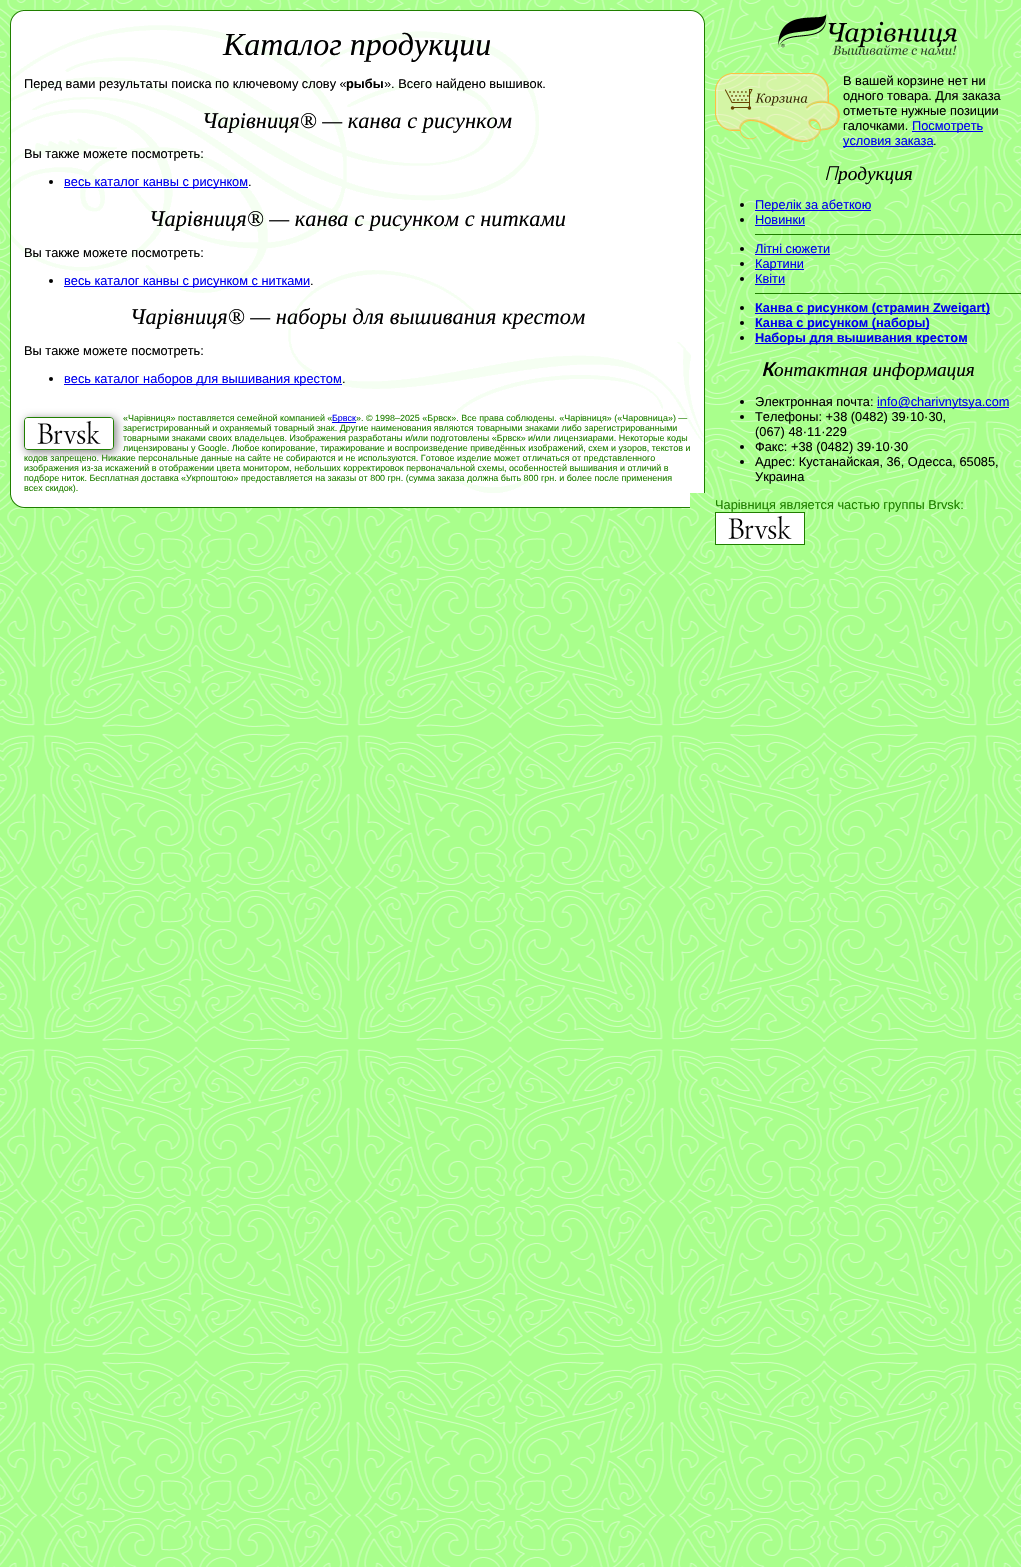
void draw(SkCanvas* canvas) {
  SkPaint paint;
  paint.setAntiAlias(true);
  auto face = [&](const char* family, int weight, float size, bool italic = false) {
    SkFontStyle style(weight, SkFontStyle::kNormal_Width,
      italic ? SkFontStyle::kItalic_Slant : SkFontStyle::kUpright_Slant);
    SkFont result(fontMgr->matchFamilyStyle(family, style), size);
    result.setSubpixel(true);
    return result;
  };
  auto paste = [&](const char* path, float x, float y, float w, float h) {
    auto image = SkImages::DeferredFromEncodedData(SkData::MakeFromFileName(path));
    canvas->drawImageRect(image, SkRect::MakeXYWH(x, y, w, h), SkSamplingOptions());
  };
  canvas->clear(0xffffffff);
  paste("img/1.png", 0, 0, 1021, 1567);
  paste("img/2.png", 10, 10, 15, 15);
  paint.setColor(0xffffffff);
  canvas->drawRect(SkRect::MakeXYWH(25, 11, 665, 14), paint);
  paint.setColor(0xff207f00);
  canvas->drawRect(SkRect::MakeXYWH(25, 10, 665, 1), paint);
  paste("img/3.png", 690, 10, 15, 15);
  paint.setColor(0xffffffff);
  canvas->drawRect(SkRect::MakeXYWH(11, 25, 693, 468), paint);
  paste("img/4.png", 11, 25, 528, 268);
  paint.setColor(0xff207f00);
  canvas->drawRect(SkRect::MakeXYWH(704, 25, 1, 468), paint);
  canvas->drawRect(SkRect::MakeXYWH(10, 25, 1, 468), paint);
  paste("img/5.png", 288, 270, 416, 223);
  paint.setColor(0xff000000);
  canvas->drawCircle(51, 182, 2, paint);
  paint.setColor(0xff0000ee);
  canvas->drawRect(SkRect::MakeXYWH(64, 187, 184, 1), paint);
  paint.setColor(0xff000000);
  canvas->drawCircle(51, 281, 2, paint);
  paint.setColor(0xff0000ee);
  canvas->drawRect(SkRect::MakeXYWH(64, 286, 246, 1), paint);
  paint.setColor(0xff000000);
  canvas->drawCircle(51, 379, 2, paint);
  paint.setColor(0xff0000ee);
  canvas->drawRect(SkRect::MakeXYWH(64, 384, 278, 1), paint);
  paint.setColor(0xff808080);
  paint.setMaskFilter(SkMaskFilter::MakeBlur(kNormal_SkBlurStyle, 5));
  canvas->drawRoundRect(SkRect::MakeXYWH(26, 419, 90, 33), 4, 4, paint);
  paint.setMaskFilter(nullptr);
  paint.setStroke(true);
  paint.setStrokeWidth(1);
  paint.setColor(0xff207f00);
  canvas->drawRoundRect(SkRect::MakeXYWH(24.5f, 417.5f, 89, 32), 3.5f, 3.5f, paint);
  paste("img/6.png", 25, 418, 88, 31);
  paint.setStroke(false);
  paint.setColor(0xff0000ee);
  canvas->drawRect(SkRect::MakeXYWH(332, 422, 24, 1), paint);
  paste("img/7.png", 10, 493, 15, 15);
  paint.setColor(0xffffffff);
  canvas->drawRect(SkRect::MakeXYWH(25, 493, 665, 14), paint);
  paint.setColor(0xff207f00);
  canvas->drawRect(SkRect::MakeXYWH(25, 507, 665, 1), paint);
  paste("img/8.png", 778, 14, 179, 41);
  paste("img/9.png", 715, 73, 125, 69);
  paint.setColor(0xff0000ee);
  canvas->drawRect(SkRect::MakeXYWH(912, 131, 71, 1), paint);
  canvas->drawRect(SkRect::MakeXYWH(843, 146, 90, 1), paint);
  paint.setColor(0xff000000);
  canvas->drawCircle(742, 205, 2, paint);
  paint.setColor(0xff0000ee);
  canvas->drawRect(SkRect::MakeXYWH(755, 210, 116, 1), paint);
  paint.setColor(0xff000000);
  canvas->drawCircle(742, 220, 2, paint);
  paint.setColor(0xff0000ee);
  canvas->drawRect(SkRect::MakeXYWH(755, 225, 50, 1), paint);
  paint.setColor(0xff207f00);
  canvas->drawRect(SkRect::MakeXYWH(755, 234, 266, 1), paint);
  paint.setColor(0xff000000);
  canvas->drawCircle(742, 249, 2, paint);
  paint.setColor(0xff0000ee);
  canvas->drawRect(SkRect::MakeXYWH(755, 254, 75, 1), paint);
  paint.setColor(0xff000000);
  canvas->drawCircle(742, 264, 2, paint);
  paint.setColor(0xff0000ee);
  canvas->drawRect(SkRect::MakeXYWH(755, 269, 49, 1), paint);
  paint.setColor(0xff000000);
  canvas->drawCircle(742, 279, 2, paint);
  paint.setColor(0xff0000ee);
  canvas->drawRect(SkRect::MakeXYWH(755, 284, 30, 1), paint);
  paint.setColor(0xff207f00);
  canvas->drawRect(SkRect::MakeXYWH(755, 293, 266, 1), paint);
  paint.setColor(0xff000000);
  canvas->drawCircle(742, 308, 2, paint);
  paint.setColor(0xff0000ee);
  canvas->drawRect(SkRect::MakeXYWH(755, 313, 235, 1), paint);
  paint.setColor(0xff000000);
  canvas->drawCircle(742, 323, 2, paint);
  paint.setColor(0xff0000ee);
  canvas->drawRect(SkRect::MakeXYWH(755, 328, 174, 1), paint);
  paint.setColor(0xff000000);
  canvas->drawCircle(742, 338, 2, paint);
  paint.setColor(0xff0000ee);
  canvas->drawRect(SkRect::MakeXYWH(755, 343, 212, 1), paint);
  paint.setColor(0xff000000);
  canvas->drawCircle(742, 402, 2, paint);
  paint.setColor(0xff0000ee);
  canvas->drawRect(SkRect::MakeXYWH(877, 407, 132, 1), paint);
  paint.setColor(0xff000000);
  canvas->drawCircle(742, 417, 2, paint);
  canvas->drawCircle(742, 447, 2, paint);
  canvas->drawCircle(742, 462, 2, paint);
  paint.setStroke(true);
  paint.setColor(0xff207f00);
  canvas->drawRect(SkRect::MakeXYWH(715.5f, 512.5f, 89, 32), paint);
  paste("img/10.png", 716, 513, 88, 31);
  auto f0 = face("Liberation Serif", 400, 32, true);
  paint.setStroke(false);
  paint.setColor(0xff000000);
  canvas->drawString("Каталог продукции", 223, 55, f0, paint);
  auto f1 = face("Liberation Sans", 400, 12.8f);
  canvas->drawString("Перед вами результаты поиска по ключевому слову «", 24, 88, f1, paint);
  auto f2 = face("Liberation Sans", 700, 12.8f);
  canvas->drawString("рыбы", 346, 88, f2, paint);
  canvas->drawString("». Всего найдено вышивок.", 384, 88, f1, paint);
  auto f3 = face("Liberation Serif", 400, 22.4f, true);
  canvas->drawString("Чарівниця® — канва с рисунком", 202, 128, f3, paint);
  canvas->drawString("Вы также можете посмотреть:", 24, 158, f1, paint);
  paint.setColor(0xff0000ee);
  canvas->drawString("весь каталог канвы с рисунком", 64, 186, f1, paint);
  paint.setColor(0xff000000);
  canvas->drawString(".", 248, 186, f1, paint);
  canvas->drawString("Чарівниця® — канва с рисунком с нитками", 149, 226, f3, paint);
  canvas->drawString("Вы также можете посмотреть:", 24, 257, f1, paint);
  paint.setColor(0xff0000ee);
  canvas->drawString("весь каталог канвы с рисунком с нитками", 64, 285, f1, paint);
  paint.setColor(0xff000000);
  canvas->drawString(".", 310, 285, f1, paint);
  canvas->drawString("Чарівниця® — наборы для вышивания крестом", 130, 324, f3, paint);
  canvas->drawString("Вы также можете посмотреть:", 24, 355, f1, paint);
  paint.setColor(0xff0000ee);
  canvas->drawString("весь каталог наборов для вышивания крестом", 64, 383, f1, paint);
  paint.setColor(0xff000000);
  canvas->drawString(".", 342, 383, f1, paint);
  auto f4 = face("Liberation Sans", 400, 8.95f);
  paint.setColor(0xff207f00);
  canvas->drawString("«Чарівниця» поставляется семейной компанией «", 123, 421, f4, paint);
  paint.setColor(0xff0000ee);
  canvas->drawString("Брвск", 332, 421, f4, paint);
  paint.setColor(0xff207f00);
  {
    const struct { const char* s; float x, y; } items[] = {
      {"». © 1998–2025 «Брвск». Все права соблюдены. «Чарівниця» («Чаровница») —", 356, 421},
      {"зарегистрированный и охраняемый товарный знак. Другие наименования являются товарными знаками либо зарегистрированными", 123, 431},
      {"товарными знаками своих владельцев. Изображения разработаны и/или подготовлены «Брвск» и/или лицензиарами. Некоторые коды", 123, 441},
      {"лицензированы у Google. Любое копирование, тиражирование и воспроизведение приведённых изображений, схем и узоров, текстов и", 123, 451},
      {"кодов запрещено. Никакие персональные данные на сайте не собираются и не используются. Готовое изделие может отличаться от представленного", 24, 461},
      {"изображения из-за искажений в отображении цвета монитором, небольших корректировок первоначальной схемы, особенностей вышивания и отличий в", 24, 471},
      {"подборе ниток. Бесплатная доставка «Укрпоштою» предоставляется на заказы от 800 грн. (сумма заказа должна быть 800 грн. и более после применения", 24, 481},
      {"всех скидок).", 24, 491},
    };
    for (auto [s, x, y] : items) {
      canvas->drawString(s, x, y, f4, paint);
    }
  }
  paint.setColor(0xff000000);
  {
    const struct { const char* s; float x, y; } items[] = {
      {"В вашей корзине нет ни", 843, 85},
      {"одного товара. Для заказа", 843, 100},
      {"отметьте нужные позиции", 843, 115},
      {"галочками.", 843, 130},
    };
    for (auto [s, x, y] : items) {
      canvas->drawString(s, x, y, f1, paint);
    }
  }
  paint.setColor(0xff0000ee);
  canvas->drawString("Посмотреть", 912, 130, f1, paint);
  canvas->drawString("условия заказа", 843, 145, f1, paint);
  paint.setColor(0xff000000);
  canvas->drawString(".", 933, 145, f1, paint);
  auto f5 = face("Noto Sans", 300, 19.25f, true);
  canvas->drawString("П", 824, 180, f5, paint);
  auto f6 = face("Liberation Serif", 400, 19.25f, true);
  canvas->drawString("родукция", 838, 180, f6, paint);
  paint.setColor(0xff0000ee);
  {
    const struct { const char* s; float x, y; } items[] = {
      {"Перелік за абеткою", 755, 209},
      {"Новинки", 755, 224},
      {"Літні сюжети", 755, 253},
      {"Картини", 755, 268},
      {"Квіти", 755, 283},
    };
    for (auto [s, x, y] : items) {
      canvas->drawString(s, x, y, f1, paint);
    }
  }
  {
    const struct { const char* s; float x, y; } items[] = {
      {"Канва с рисунком (страмин Zweigart)", 755, 312},
      {"Канва с рисунком (наборы)", 755, 327},
      {"Наборы для вышивания крестом", 755, 342},
    };
    for (auto [s, x, y] : items) {
      canvas->drawString(s, x, y, f2, paint);
    }
  }
  auto f7 = face("Noto Sans", 600, 19.25f, true);
  paint.setColor(0xff000000);
  canvas->drawString("К", 761, 376, f7, paint);
  canvas->drawString("онтактная информация", 774, 376, f6, paint);
  canvas->drawString("Электронная почта:", 755, 406, f1, paint);
  paint.setColor(0xff0000ee);
  canvas->drawString("info@charivnytsya.com", 877, 406, f1, paint);
  paint.setColor(0xff000000);
  {
    const struct { const char* s; float x, y; } items[] = {
      {"Телефоны: +38 (0482) 39·10·30,", 755, 421},
      {"(067) 48·11·229", 755, 436},
      {"Факс: +38 (0482) 39·10·30", 755, 451},
      {"Адрес: Кустанайская, 36, Одесса, 65085,", 755, 466},
      {"Украина", 755, 481},
    };
    for (auto [s, x, y] : items) {
      canvas->drawString(s, x, y, f1, paint);
    }
  }
  paint.setColor(0xff207f00);
  canvas->drawString("Чарівниця является частью группы Brvsk:", 715, 509, f1, paint);
}
